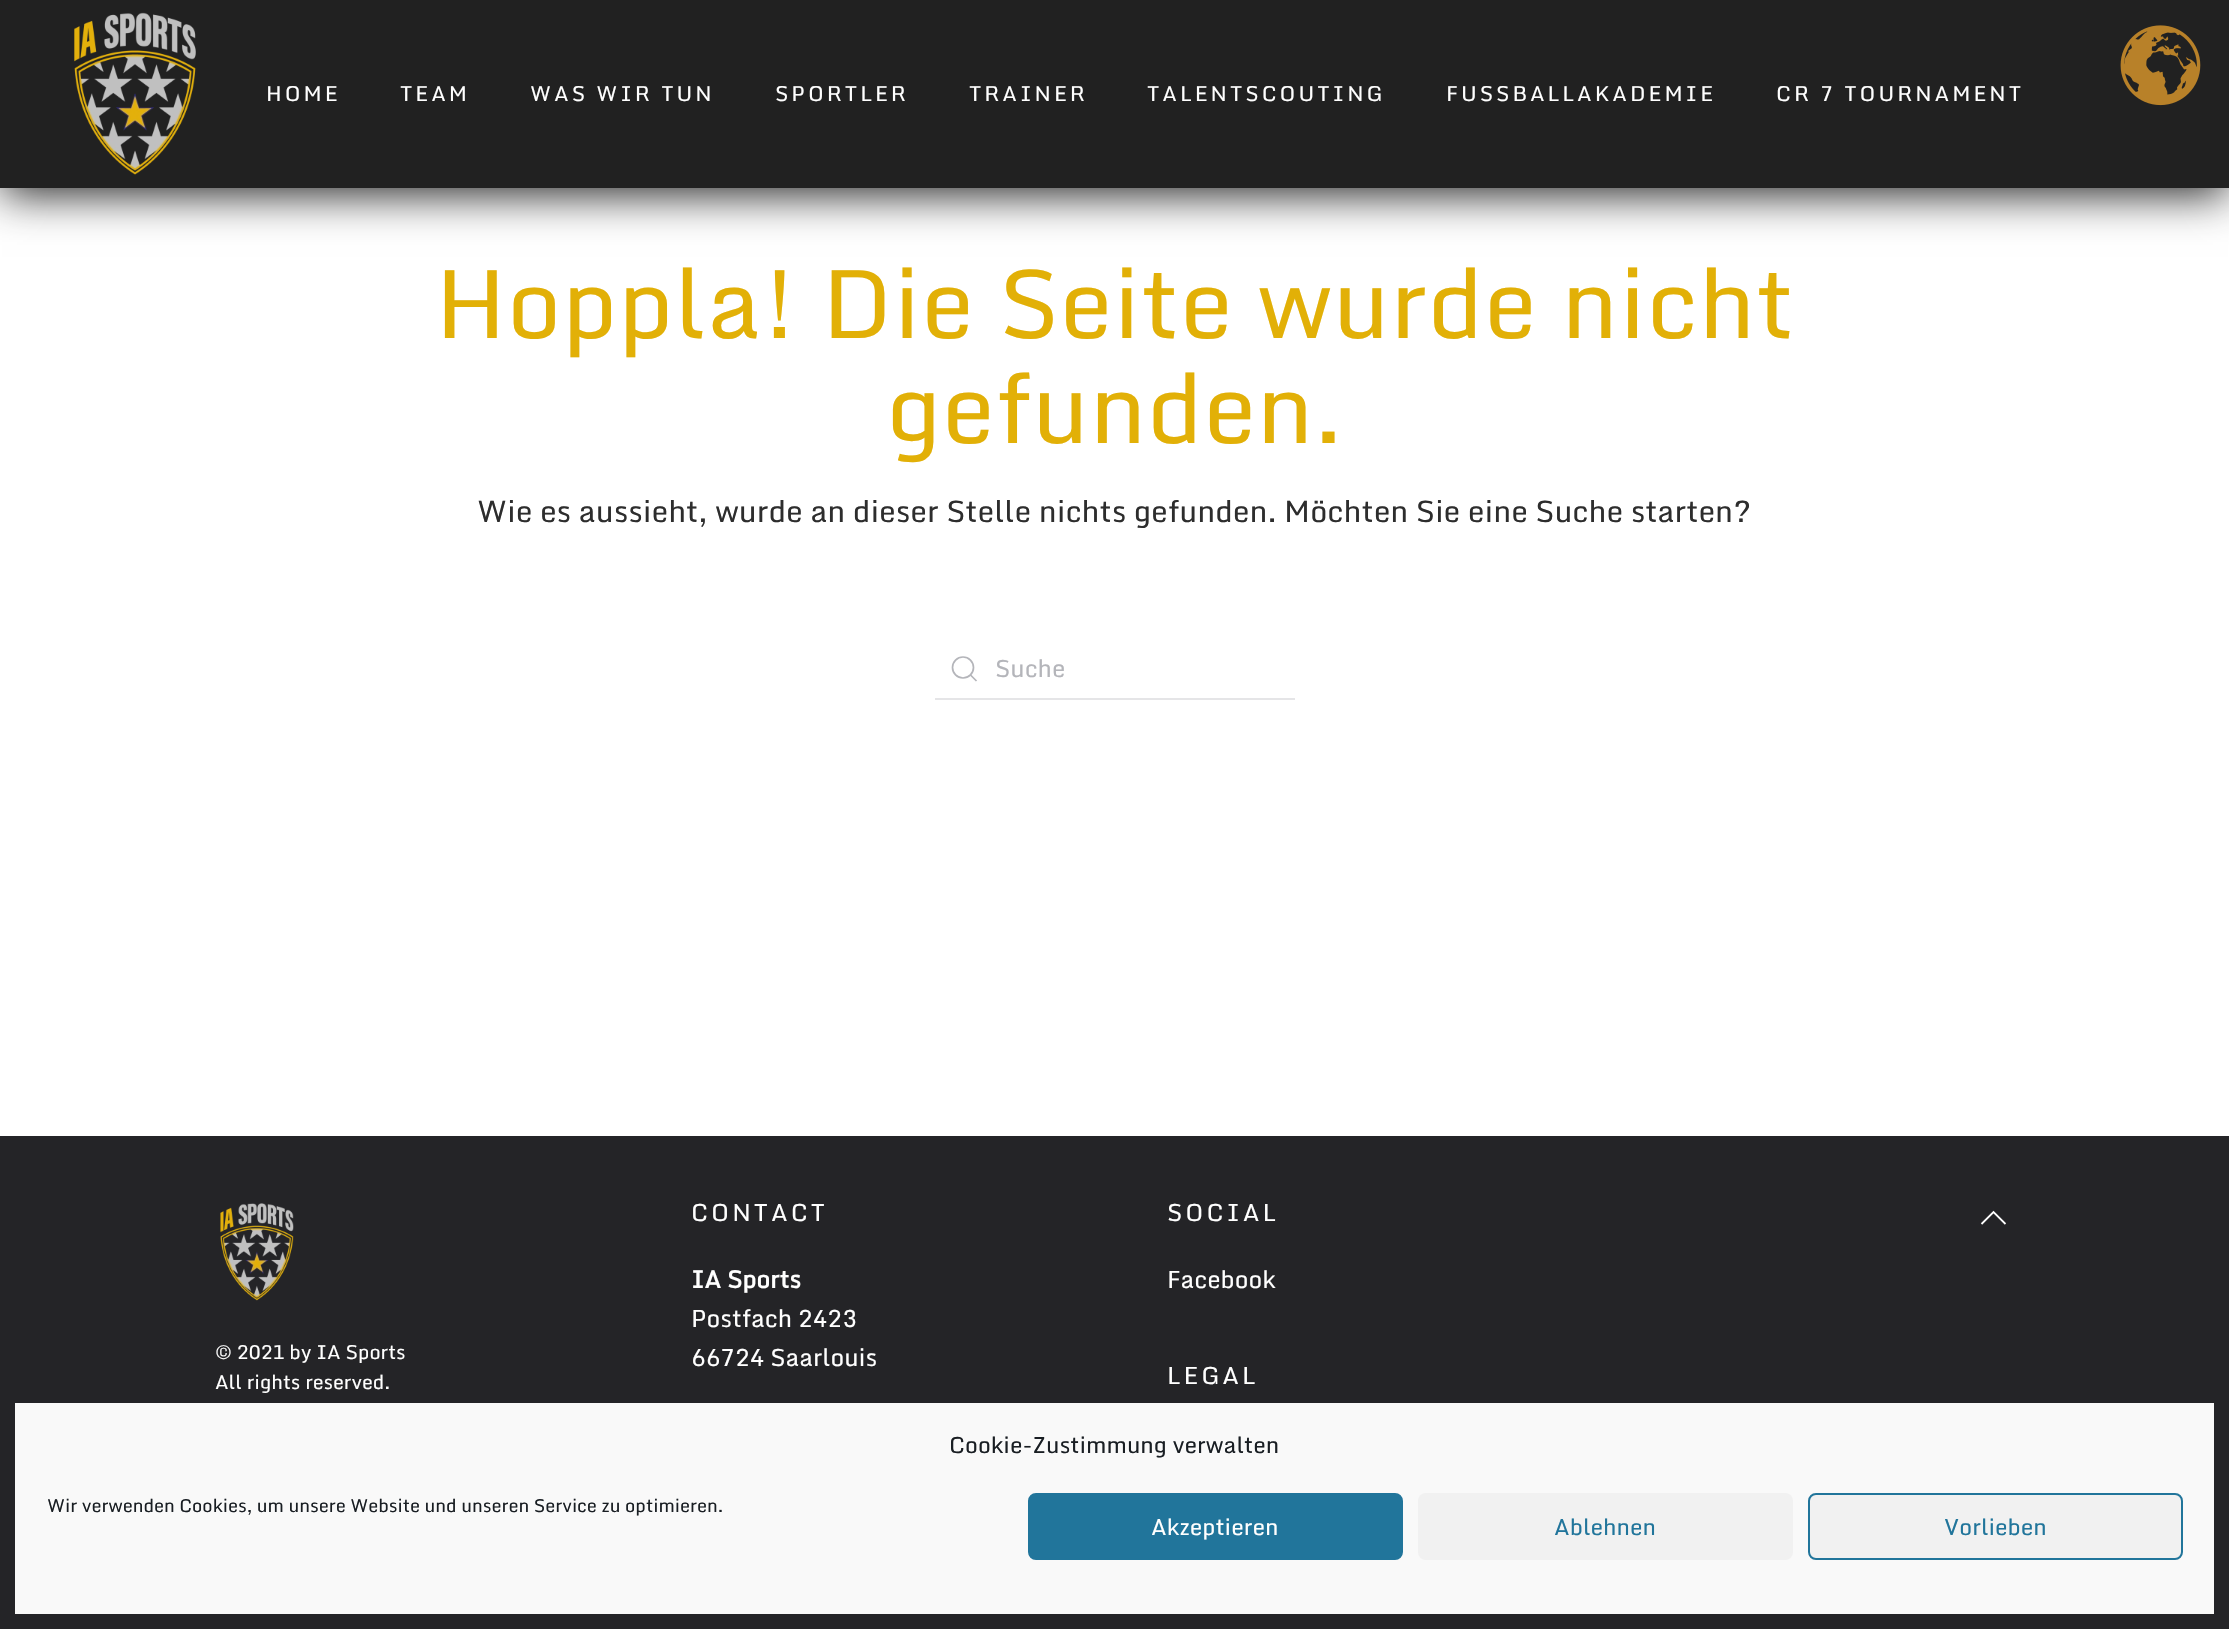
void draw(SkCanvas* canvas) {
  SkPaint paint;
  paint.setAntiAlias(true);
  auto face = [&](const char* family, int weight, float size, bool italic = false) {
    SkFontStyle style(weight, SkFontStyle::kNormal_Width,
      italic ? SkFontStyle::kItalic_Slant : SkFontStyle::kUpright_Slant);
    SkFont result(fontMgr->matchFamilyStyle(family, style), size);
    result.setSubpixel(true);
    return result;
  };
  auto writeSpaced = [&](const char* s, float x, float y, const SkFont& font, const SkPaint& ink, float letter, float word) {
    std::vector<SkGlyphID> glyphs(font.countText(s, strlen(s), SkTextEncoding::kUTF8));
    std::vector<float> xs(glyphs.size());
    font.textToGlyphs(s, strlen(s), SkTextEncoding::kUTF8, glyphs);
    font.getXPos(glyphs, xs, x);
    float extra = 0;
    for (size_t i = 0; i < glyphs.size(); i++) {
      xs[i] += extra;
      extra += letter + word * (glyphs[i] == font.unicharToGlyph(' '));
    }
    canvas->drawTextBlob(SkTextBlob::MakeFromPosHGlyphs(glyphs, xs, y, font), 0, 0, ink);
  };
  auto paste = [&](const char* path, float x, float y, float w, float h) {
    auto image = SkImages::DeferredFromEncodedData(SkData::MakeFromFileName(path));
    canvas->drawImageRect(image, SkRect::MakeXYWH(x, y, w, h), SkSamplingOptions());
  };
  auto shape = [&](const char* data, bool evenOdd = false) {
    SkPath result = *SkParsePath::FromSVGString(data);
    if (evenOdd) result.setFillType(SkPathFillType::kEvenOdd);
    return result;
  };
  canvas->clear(0xffffffff);
  paint.setColor(0xff212121);
  paint.setMaskFilter(SkMaskFilter::MakeBlur(kNormal_SkBlurStyle, 21));
  canvas->drawRect(SkRect::MakeXYWH(2, 9, 2226, 185), paint);
  paint.setMaskFilter(nullptr);
  canvas->drawRect(SkRect::MakeXYWH(0, 0, 2229, 188), paint);
  paste("img/1.png", 2120, 25, 81, 81);
  paste("img/2.png", 74, 12, 122, 163);
  paint.setStroke(true);
  paint.setStrokeWidth(1.7f);
  paint.setColor(0xffb4b5ba);
  canvas->drawCircle(963, 667.5f, 10.5f, paint);
  canvas->drawPath(shape("M970.5 675L976.5 681Z"), paint);
  paint.setStroke(false);
  paint.setColor(0xffe5e5e7);
  canvas->drawRect(SkRect::MakeXYWH(935, 698, 360, 2), paint);
  paint.setColor(0xff242427);
  canvas->drawRect(SkRect::MakeXYWH(0, 1136, 2229, 493), paint);
  paint.setStroke(true);
  paint.setStrokeWidth(1.8f);
  paint.setColor(0xffffffff);
  canvas->drawPath(shape("M1981.5 1224L1993.5 1212L2005.5 1224"), paint);
  paste("img/3.png", 220, 1203, 74, 98);
  paint.setStroke(false);
  paint.setColor(0xfff9f9f9);
  canvas->drawRect(SkRect::MakeXYWH(15, 1403, 2199, 211), paint);
  paint.setColor(0xff21759b);
  canvas->drawRoundRect(SkRect::MakeXYWH(1029, 1494, 373, 65), 7, 7, paint);
  paint.setStroke(true);
  paint.setStrokeWidth(2);
  canvas->drawRoundRect(SkRect::MakeXYWH(1029, 1494, 373, 65), 7, 7, paint);
  paint.setStroke(false);
  paint.setColor(0xfff1f1f1);
  canvas->drawRoundRect(SkRect::MakeXYWH(1418, 1493, 375, 67), 8, 8, paint);
  canvas->drawRoundRect(SkRect::MakeXYWH(1809, 1494, 373, 65), 7, 7, paint);
  paint.setStroke(true);
  paint.setColor(0xff21759b);
  canvas->drawRoundRect(SkRect::MakeXYWH(1809, 1494, 373, 65), 7, 7, paint);
  auto f0 = face("Monda", 400, 21);
  paint.setStroke(false);
  paint.setColor(0xffffffff);
  {
    const struct { const char* s; float x, y; } items[] = {
      {"HOME", 266, 101},
      {"TEAM", 400, 101},
      {"WAS WIR TUN", 530, 101},
      {"SPORTLER", 775, 101},
      {"TRAINER", 969, 101},
      {"TALENTSCOUTING", 1147, 101},
      {"FUSSBALLAKADEMIE", 1446, 101},
      {"CR 7 TOURNAMENT", 1776, 101},
    };
    for (auto [s, x, y] : items) {
      writeSpaced(s, x, y, f0, paint, 3, 0);
    }
  }
  auto f1 = face("Monda", 400, 96);
  paint.setColor(0xffe2b007);
  canvas->drawString("Hoppla! Die Seite wurde nicht", 435, 338, f1, paint);
  canvas->drawString("gefunden.", 886, 443, f1, paint);
  auto f2 = face("Monda", 400, 30);
  paint.setColor(0xff2d2d2d);
  canvas->drawString("Wie es aussieht, wurde an dieser Stelle nichts gefunden. Möchten Sie eine Suche starten?", 477, 522, f2, paint);
  auto f3 = face("Monda", 400, 24);
  paint.setColor(0xffb4b5ba);
  canvas->drawString("Suche", 995, 677, f3, paint);
  paint.setColor(0xffffffff);
  writeSpaced("CONTACT", 691, 1221, f3, paint, 3, 0);
  auto f4 = face("Monda", 700, 24);
  canvas->drawString("IA Sports", 691, 1288, f4, paint);
  canvas->drawString("Postfach 2423", 691, 1327, f3, paint);
  canvas->drawString("66724 Saarlouis", 691, 1366, f3, paint);
  writeSpaced("SOCIAL", 1167, 1221, f3, paint, 3, 0);
  canvas->drawString("Facebook", 1167, 1288, f3, paint);
  writeSpaced("LEGAL", 1167, 1384, f3, paint, 3, 0);
  auto f5 = face("Monda", 400, 19.5f);
  canvas->drawString("© 2021 by IA Sports", 215, 1359, f5, paint);
  canvas->drawString("All rights reserved.", 215, 1389, f5, paint);
  auto f6 = face("Monda", 400, 22.5f);
  paint.setColor(0xff191e23);
  canvas->drawString("Cookie-Zustimmung verwalten", 949, 1453, f6, paint);
  auto f7 = face("Monda", 400, 18);
  canvas->drawString("Wir verwenden Cookies, um unsere Website und unseren Service zu optimieren.", 47, 1512, f7, paint);
  paint.setColor(0xffffffff);
  canvas->drawString("Akzeptieren", 1151, 1535, f6, paint);
  paint.setColor(0xff21759b);
  canvas->drawString("Ablehnen", 1554, 1535, f6, paint);
  canvas->drawString("Vorlieben", 1944, 1535, f6, paint);
}
